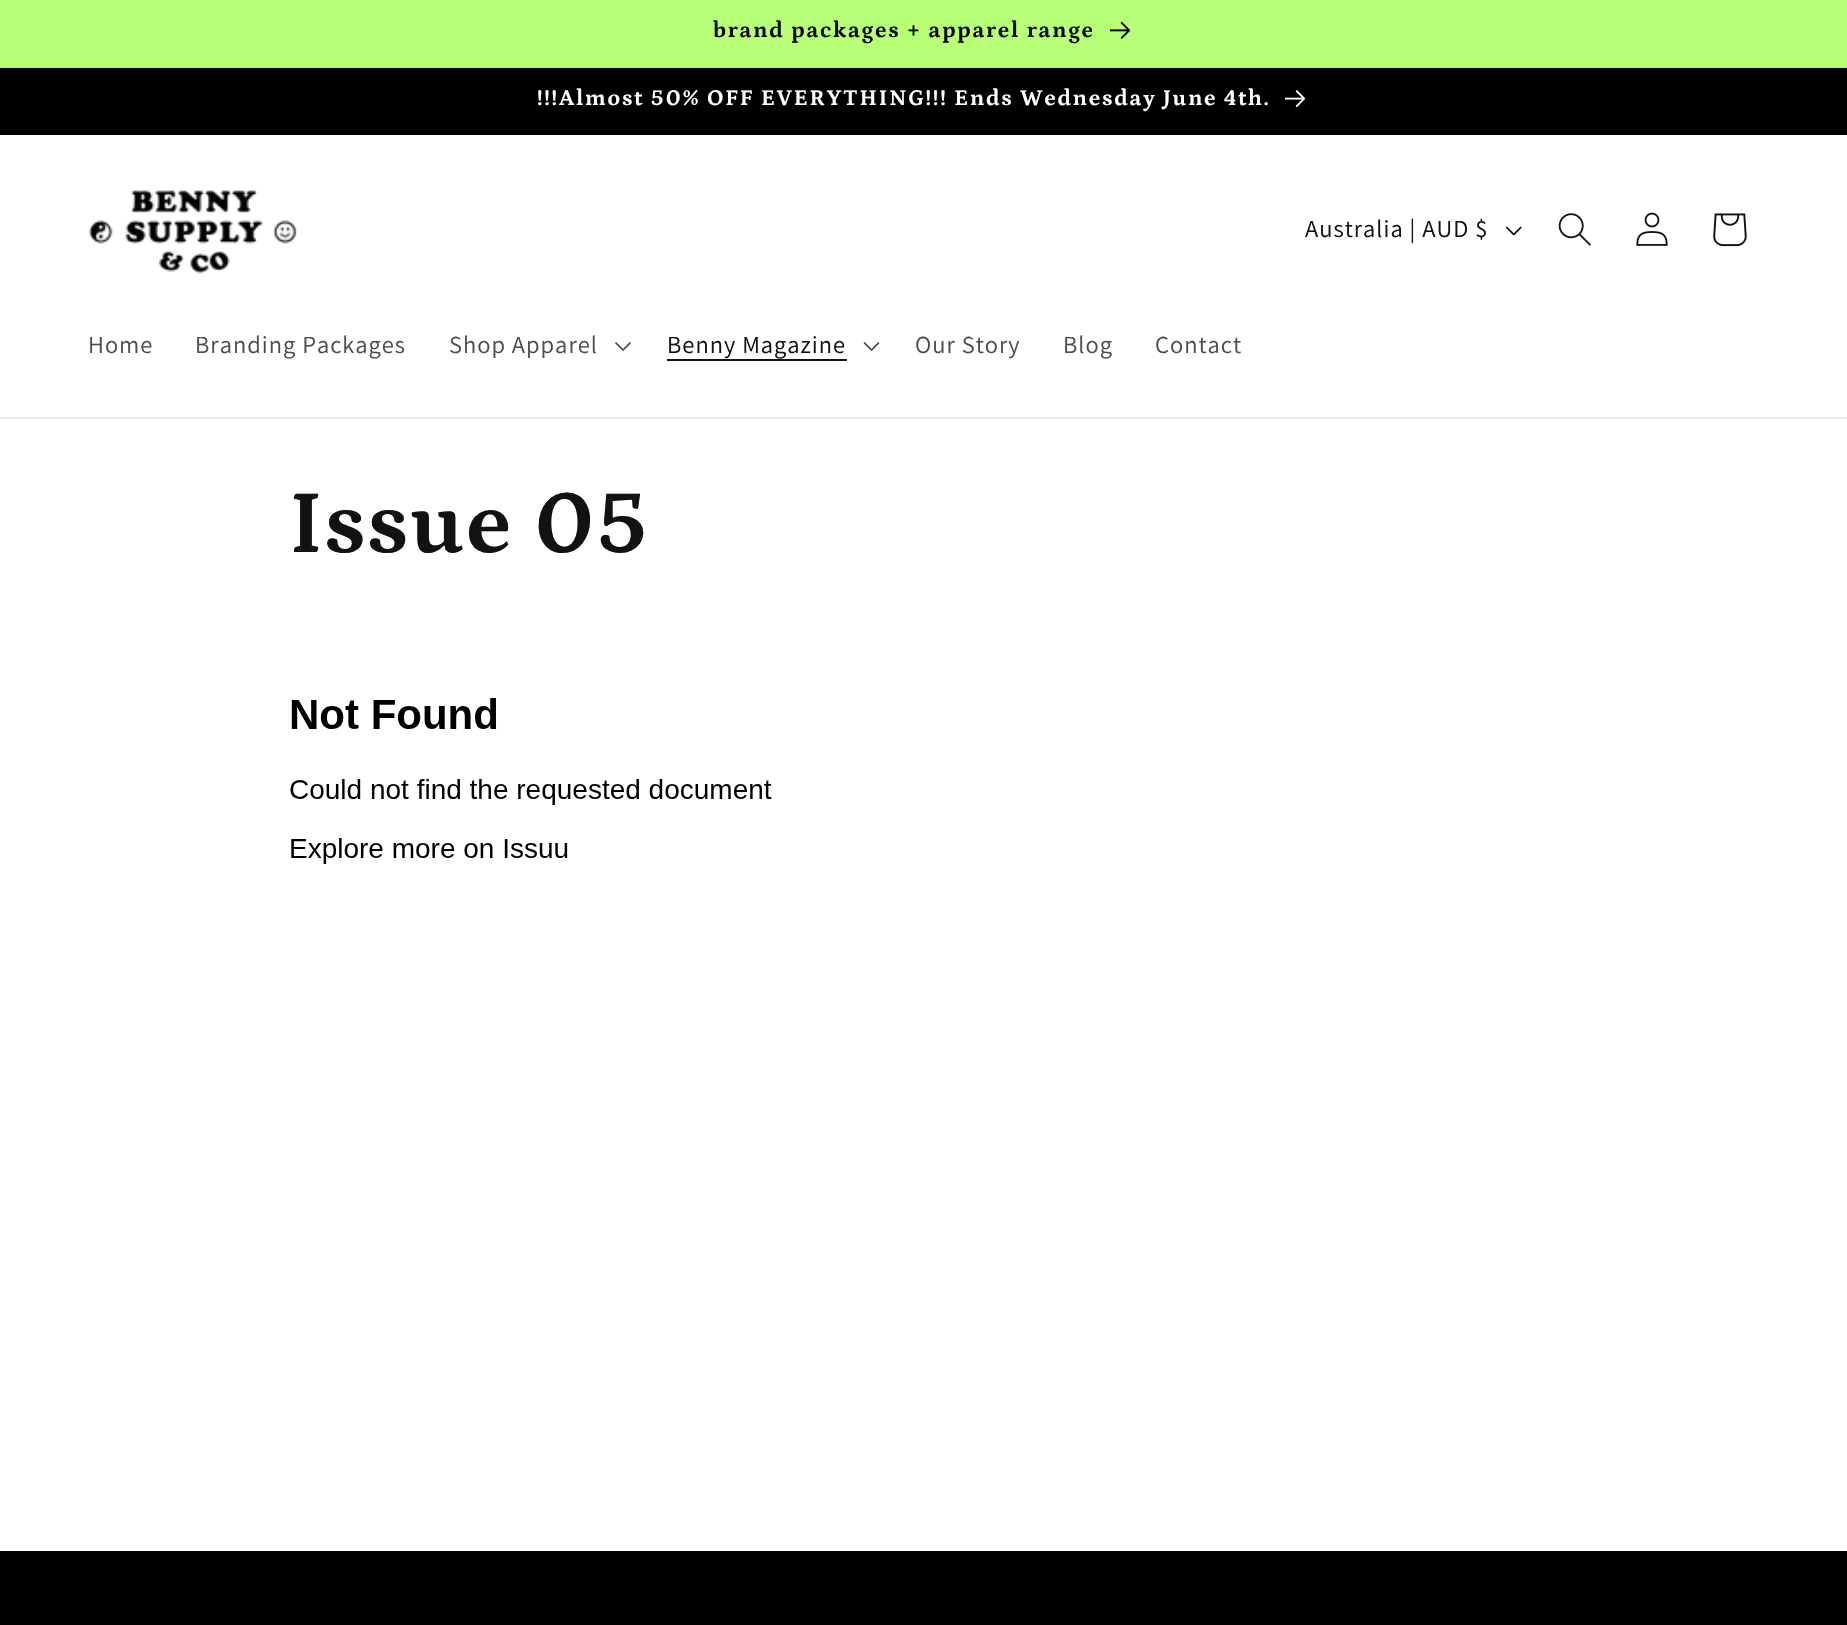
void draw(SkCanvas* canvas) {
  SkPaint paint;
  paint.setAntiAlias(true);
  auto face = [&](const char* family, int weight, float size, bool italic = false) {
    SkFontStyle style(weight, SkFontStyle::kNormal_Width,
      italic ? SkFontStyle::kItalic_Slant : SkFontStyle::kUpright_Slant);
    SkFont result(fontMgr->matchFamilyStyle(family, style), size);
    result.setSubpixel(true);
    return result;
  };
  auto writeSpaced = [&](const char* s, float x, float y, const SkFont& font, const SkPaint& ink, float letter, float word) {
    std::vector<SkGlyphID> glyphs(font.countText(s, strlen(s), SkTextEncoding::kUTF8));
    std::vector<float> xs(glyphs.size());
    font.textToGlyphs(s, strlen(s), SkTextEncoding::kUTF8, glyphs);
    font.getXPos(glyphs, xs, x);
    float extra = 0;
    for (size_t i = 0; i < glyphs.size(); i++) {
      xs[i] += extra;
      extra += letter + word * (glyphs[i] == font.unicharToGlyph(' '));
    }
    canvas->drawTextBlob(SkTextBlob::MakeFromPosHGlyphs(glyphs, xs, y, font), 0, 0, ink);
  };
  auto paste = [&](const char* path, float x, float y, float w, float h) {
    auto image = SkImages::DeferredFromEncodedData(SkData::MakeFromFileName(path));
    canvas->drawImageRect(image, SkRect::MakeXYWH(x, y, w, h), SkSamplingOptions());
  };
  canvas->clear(0xffffffff);
  paint.setColor(0xffb8ff78);
  canvas->drawRect(SkRect::MakeXYWH(0, 0, 1847, 67), paint);
  paint.setColor(0xffa9eb6e);
  canvas->drawRect(SkRect::MakeXYWH(0, 67, 1847, 1), paint);
  paste("img/1.png", 1110, 21, 21, 18);
  paint.setColor(0xff000000);
  canvas->drawRect(SkRect::MakeXYWH(0, 68, 1847, 67), paint);
  paste("img/2.png", 1285, 90, 21, 17);
  paint.setColor(0xffececec);
  canvas->drawRect(SkRect::MakeXYWH(0, 417, 1847, 2), paint);
  paste("img/3.png", 89, 190, 208, 84);
  paste("img/4.png", 1505, 226, 17, 10);
  paste("img/5.png", 1558, 213, 33, 33);
  paste("img/6.png", 1636, 212, 32, 34);
  paste("img/7.png", 1713, 213, 34, 34);
  paste("img/8.png", 615, 342, 16, 9);
  paint.setColor(0xff121212);
  canvas->drawRect(SkRect::MakeXYWH(667, 359, 180, 2), paint);
  paste("img/9.png", 863, 342, 17, 9);
  paste("img/10.png", 290, 698, 482, 166);
  paint.setColor(0xff000000);
  canvas->drawRect(SkRect::MakeXYWH(0, 1551, 1847, 74), paint);
  auto f0 = face("Petrona", 700, 22.75f);
  writeSpaced("brand packages + apparel range", 713, 37, f0, paint, 1.75f, 0);
  paint.setColor(0xffffffff);
  writeSpaced("!!!Almost 50% OFF EVERYTHING!!! Ends Wednesday June 4th.", 537, 105, f0, paint, 1.75f, 0);
  auto f1 = face("Assistant", 400, 24.5f);
  paint.setColor(0xff121212);
  writeSpaced("Australia | AUD $", 1305, 237, f1, paint, 1, 0);
  paint.setColor(0xff4d4d4d);
  {
    const struct { const char* s; float x, y; } items[] = {
      {"Home", 88, 353},
      {"Branding Packages", 195, 353},
      {"Shop Apparel", 449, 353},
    };
    for (auto [s, x, y] : items) {
      writeSpaced(s, x, y, f1, paint, 1, 0);
    }
  }
  paint.setColor(0xff121212);
  writeSpaced("Benny Magazine", 667, 353, f1, paint, 1, 0);
  paint.setColor(0xff4d4d4d);
  {
    const struct { const char* s; float x, y; } items[] = {
      {"Our Story", 915, 353},
      {"Blog", 1063, 353},
      {"Contact", 1155, 353},
    };
    for (auto [s, x, y] : items) {
      writeSpaced(s, x, y, f1, paint, 1, 0);
    }
  }
  auto f2 = face("Petrona", 700, 91);
  paint.setColor(0xff121212);
  writeSpaced("Issue 05", 289, 552, f2, paint, 1, 0);
}
